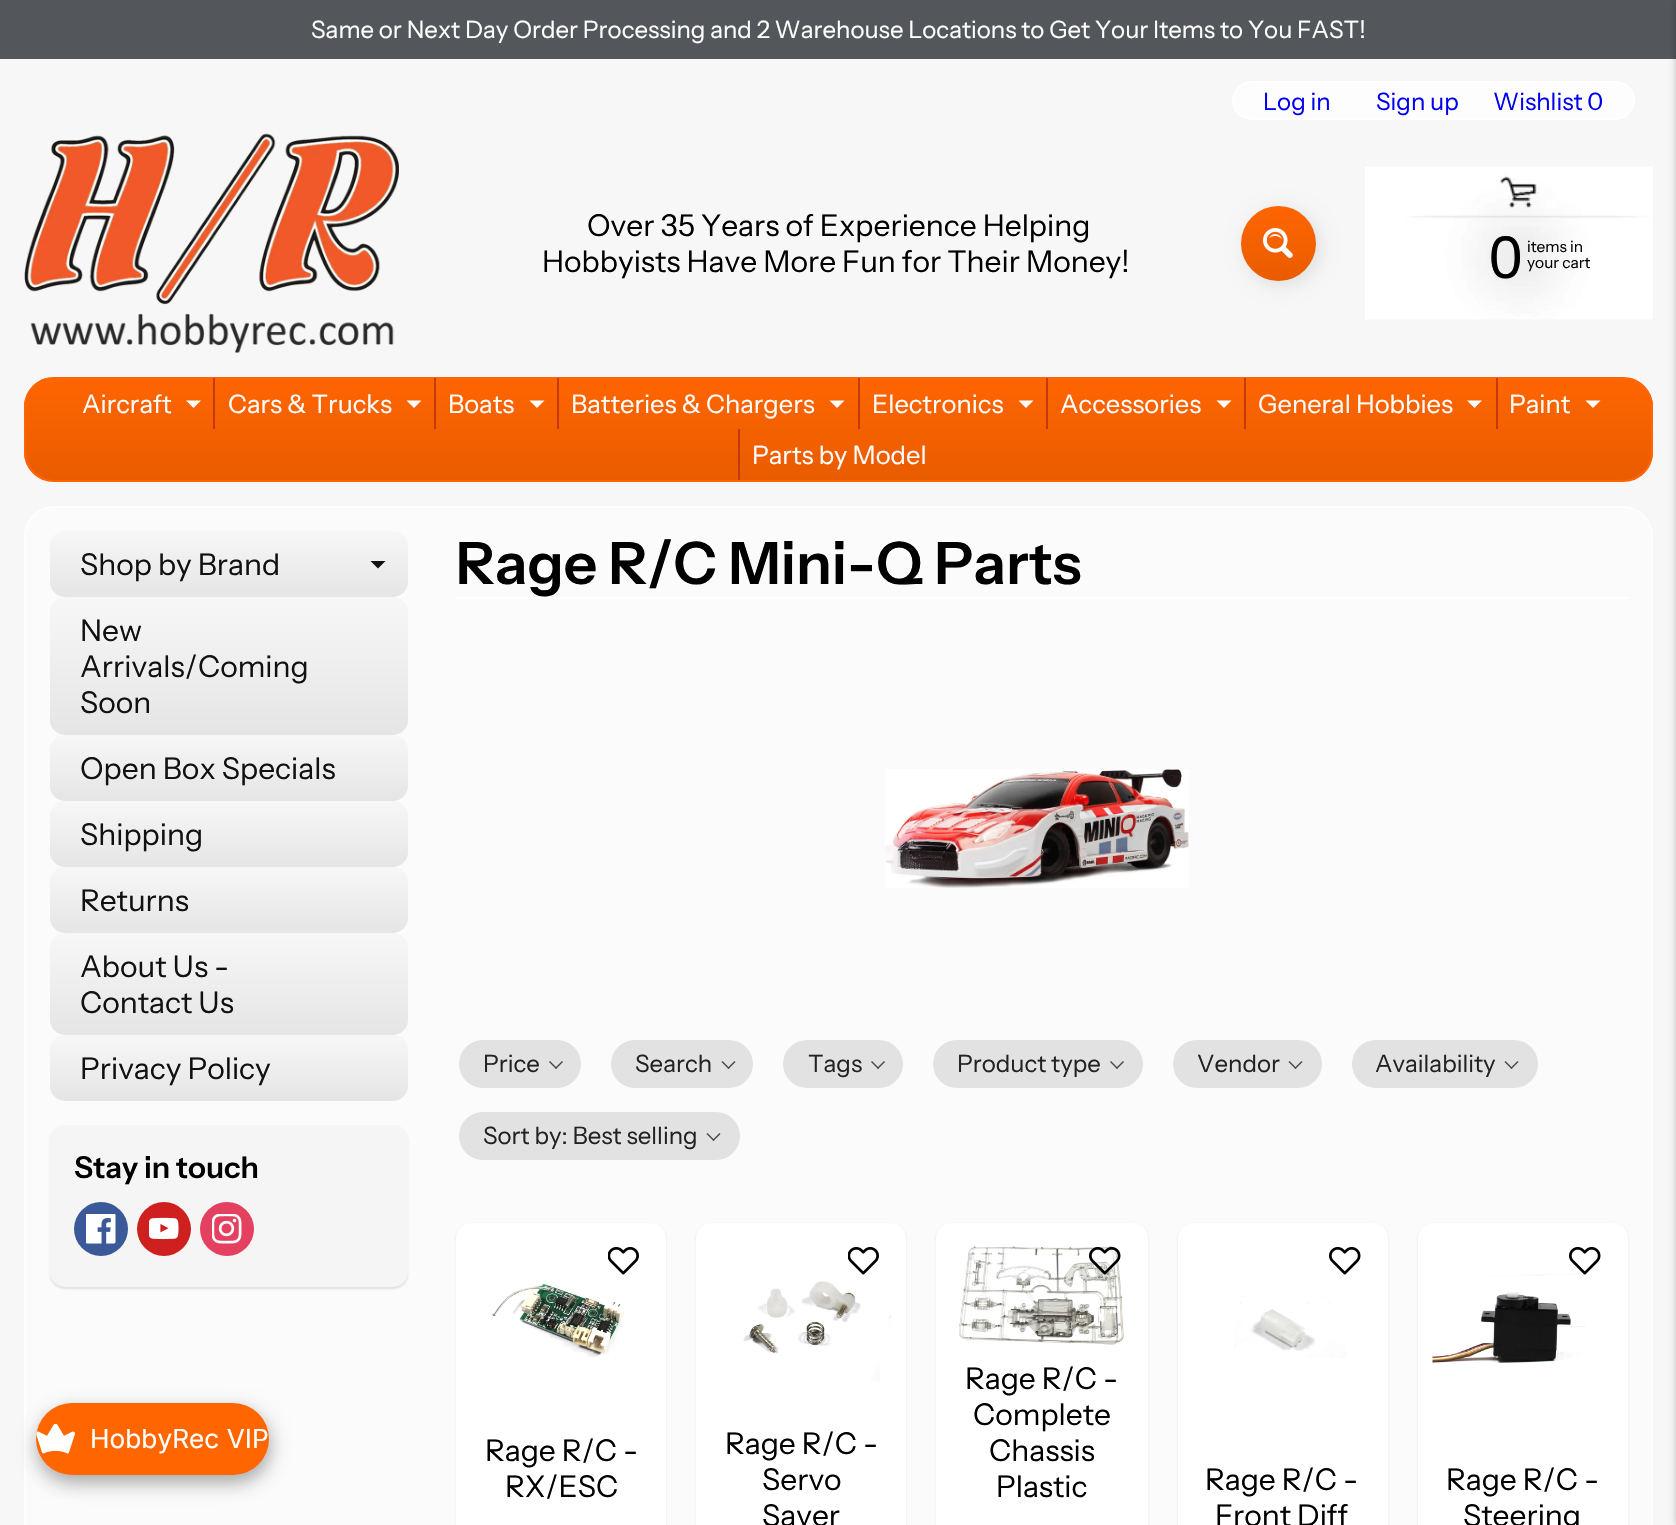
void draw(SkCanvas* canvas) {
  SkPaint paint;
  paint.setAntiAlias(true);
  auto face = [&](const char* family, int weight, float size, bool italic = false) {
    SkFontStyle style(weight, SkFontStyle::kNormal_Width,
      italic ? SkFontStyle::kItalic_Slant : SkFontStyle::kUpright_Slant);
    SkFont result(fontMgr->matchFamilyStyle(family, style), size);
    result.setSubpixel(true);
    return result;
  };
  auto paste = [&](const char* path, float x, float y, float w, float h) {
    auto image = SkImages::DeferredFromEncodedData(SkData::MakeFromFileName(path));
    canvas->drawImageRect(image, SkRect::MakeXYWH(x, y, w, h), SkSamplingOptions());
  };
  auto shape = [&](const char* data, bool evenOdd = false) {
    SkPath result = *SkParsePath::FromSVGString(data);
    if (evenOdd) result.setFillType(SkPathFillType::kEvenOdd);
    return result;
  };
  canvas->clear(0xfff7f7f7);
  paint.setColor(0xff53565a);
  canvas->drawRect(SkRect::MakeXYWH(0, 0, 1676, 59), paint);
  paste("img/1.png", 24, 133, 375, 220);
  paint.setColor(0xfffdfdfd);
  canvas->drawRoundRect(SkRect::MakeXYWH(1233, 82, 401, 37), 18.5f, 18.5f, paint);
  paint.setStroke(true);
  paint.setStrokeWidth(2);
  paint.setColor(0xffffffff);
  canvas->drawRoundRect(SkRect::MakeXYWH(1233, 82, 401, 37), 18.5f, 18.5f, paint);
  paint.setStroke(false);
  paint.setColor(0x1a000000);
  paint.setMaskFilter(SkMaskFilter::MakeBlur(kNormal_SkBlurStyle, 9));
  canvas->drawRoundRect(SkRect::MakeXYWH(1245, 210, 75, 75), 37.5f, 37.5f, paint);
  paint.setMaskFilter(nullptr);
  {
    const SkColor colors[] = {0xffff6501, 0xffe95c00};
    const float stops[] = {0, 1};
    const SkPoint ends[] = {{1278, 206}, {1278, 281}};
    paint.setShader(SkGradientShader::MakeLinear(ends, colors, stops, 2, SkTileMode::kClamp));
    paint.setAlpha(255);
  }
  canvas->drawCircle(1278.5f, 243.5f, 37.5f, paint);
  paste("img/2.png", 1263, 228, 30, 30);
  paste("img/3.png", 1365, 166, 288, 154);
  canvas->save();
  canvas->clipPath(shape("M54 377H1623C1639.5 377 1653 390.5 1653 407V452C1653 468.5 1639.5 482 1623 482H54C37.5 482 24 468.5 24 452V407C24 390.5 37.5 377 54 377Z"), true);
  {
    const SkColor colors[] = {0xffff6501, 0xffe95c00};
    const float stops[] = {0, 1};
    const SkPoint ends[] = {{839, 378}, {839, 480}};
    paint.setShader(SkGradientShader::MakeLinear(ends, colors, stops, 2, SkTileMode::kClamp));
    paint.setAlpha(255);
  }
  canvas->drawRect(SkRect::MakeXYWH(24, 378, 1629, 102), paint);
  canvas->restore();
  paint.setStroke(true);
  paint.setShader(nullptr);
  paint.setColor(0xffff6501);
  canvas->drawRoundRect(SkRect::MakeXYWH(25, 378, 1627, 103), 29, 29, paint);
  paint.setStroke(false);
  paint.setColor(0xffffffff);
  canvas->drawPath(shape("M186 400.5H201L193.5 408Z"), paint);
  paint.setColor(0xffc33a0e);
  canvas->drawRect(SkRect::MakeXYWH(213, 378, 2, 51), paint);
  paint.setColor(0xffffffff);
  canvas->drawPath(shape("M406.5 400.5H421.5L414 408Z"), paint);
  paint.setColor(0xffc33a0e);
  canvas->drawRect(SkRect::MakeXYWH(434, 378, 2, 51), paint);
  paint.setColor(0xffffffff);
  canvas->drawPath(shape("M529.5 400.5H544.5L537 408Z"), paint);
  paint.setColor(0xffc33a0e);
  canvas->drawRect(SkRect::MakeXYWH(557, 378, 2, 51), paint);
  paint.setColor(0xffffffff);
  canvas->drawPath(shape("M829.5 400.5H844.5L837 408Z"), paint);
  paint.setColor(0xffc33a0e);
  canvas->drawRect(SkRect::MakeXYWH(858, 378, 2, 51), paint);
  paint.setColor(0xffffffff);
  canvas->drawPath(shape("M1018.5 400.5H1033.5L1026 408Z"), paint);
  paint.setColor(0xffc33a0e);
  canvas->drawRect(SkRect::MakeXYWH(1046, 378, 2, 51), paint);
  paint.setColor(0xffffffff);
  canvas->drawPath(shape("M1216.5 400.5H1231.5L1224 408Z"), paint);
  paint.setColor(0xffc33a0e);
  canvas->drawRect(SkRect::MakeXYWH(1244, 378, 2, 51), paint);
  paint.setColor(0xffffffff);
  canvas->drawPath(shape("M1467 400.5H1482L1474.5 408Z"), paint);
  paint.setColor(0xffc33a0e);
  canvas->drawRect(SkRect::MakeXYWH(1496, 378, 2, 51), paint);
  paint.setColor(0xffffffff);
  canvas->drawPath(shape("M1585.5 400.5H1600.5L1593 408Z"), paint);
  paint.setColor(0xffc33a0e);
  canvas->drawRect(SkRect::MakeXYWH(738, 429, 2, 51), paint);
  paint.setColor(0xfffbfbfb);
  canvas->drawRoundRect(SkRect::MakeXYWH(25, 507, 1627, 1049), 29, 29, paint);
  paint.setStroke(true);
  paint.setColor(0xfffefefe);
  canvas->drawRoundRect(SkRect::MakeXYWH(25, 507, 1627, 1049), 29, 29, paint);
  paint.setStroke(false);
  {
    const SkColor colors[] = {0xfff7f7f7, 0xffe5e5e5};
    const float stops[] = {0, 1};
    const SkPoint ends[] = {{229, 531}, {229, 597}};
    paint.setShader(SkGradientShader::MakeLinear(ends, colors, stops, 2, SkTileMode::kClamp));
    paint.setAlpha(255);
  }
  canvas->drawRoundRect(SkRect::MakeXYWH(50, 531, 358, 66), 15, 15, paint);
  paint.setShader(nullptr);
  paint.setColor(0xff111111);
  canvas->drawPath(shape("M370.5 561H385.5L378 568.5Z"), paint);
  {
    const SkColor colors[] = {0xfff7f7f7, 0xffe5e5e5};
    const float stops[] = {0, 1};
    const SkPoint ends[] = {{229, 597}, {229, 735}};
    paint.setShader(SkGradientShader::MakeLinear(ends, colors, stops, 2, SkTileMode::kClamp));
    paint.setAlpha(255);
  }
  canvas->drawRoundRect(SkRect::MakeXYWH(50, 597, 358, 138), 15, 15, paint);
  {
    const SkColor colors[] = {0xfff7f7f7, 0xffe5e5e5};
    const float stops[] = {0, 1};
    const SkPoint ends[] = {{229, 735}, {229, 801}};
    paint.setShader(SkGradientShader::MakeLinear(ends, colors, stops, 2, SkTileMode::kClamp));
    paint.setAlpha(255);
  }
  canvas->drawRoundRect(SkRect::MakeXYWH(50, 735, 358, 66), 15, 15, paint);
  {
    const SkColor colors[] = {0xfff7f7f7, 0xffe5e5e5};
    const float stops[] = {0, 1};
    const SkPoint ends[] = {{229, 801}, {229, 867}};
    paint.setShader(SkGradientShader::MakeLinear(ends, colors, stops, 2, SkTileMode::kClamp));
    paint.setAlpha(255);
  }
  canvas->drawRoundRect(SkRect::MakeXYWH(50, 801, 358, 66), 15, 15, paint);
  {
    const SkColor colors[] = {0xfff7f7f7, 0xffe5e5e5};
    const float stops[] = {0, 1};
    const SkPoint ends[] = {{229, 867}, {229, 933}};
    paint.setShader(SkGradientShader::MakeLinear(ends, colors, stops, 2, SkTileMode::kClamp));
    paint.setAlpha(255);
  }
  canvas->drawRoundRect(SkRect::MakeXYWH(50, 867, 358, 66), 15, 15, paint);
  {
    const SkColor colors[] = {0xfff7f7f7, 0xffe5e5e5};
    const float stops[] = {0, 1};
    const SkPoint ends[] = {{229, 933}, {229, 1035}};
    paint.setShader(SkGradientShader::MakeLinear(ends, colors, stops, 2, SkTileMode::kClamp));
    paint.setAlpha(255);
  }
  canvas->drawRoundRect(SkRect::MakeXYWH(50, 933, 358, 102), 15, 15, paint);
  {
    const SkColor colors[] = {0xfff7f7f7, 0xffe5e5e5};
    const float stops[] = {0, 1};
    const SkPoint ends[] = {{229, 1035}, {229, 1101}};
    paint.setShader(SkGradientShader::MakeLinear(ends, colors, stops, 2, SkTileMode::kClamp));
    paint.setAlpha(255);
  }
  canvas->drawRoundRect(SkRect::MakeXYWH(50, 1035, 358, 66), 15, 15, paint);
  paint.setShader(nullptr);
  paint.setColor(0x1a000000);
  paint.setMaskFilter(SkMaskFilter::MakeBlur(kNormal_SkBlurStyle, 1));
  canvas->drawRoundRect(SkRect::MakeXYWH(50, 1127, 358, 162), 15, 15, paint);
  paint.setMaskFilter(nullptr);
  paint.setColor(0xfff5f5f5);
  canvas->drawRoundRect(SkRect::MakeXYWH(50, 1125, 358, 162), 15, 15, paint);
  paint.setColor(0xff3b5998);
  canvas->drawCircle(101, 1229, 27, paint);
  paste("img/4.png", 86, 1214, 30, 30);
  paint.setColor(0xffcd201f);
  canvas->drawCircle(164, 1229, 27, paint);
  paste("img/5.png", 149, 1217, 30, 23);
  paint.setColor(0xffe4405f);
  canvas->drawCircle(227, 1229, 27, paint);
  paste("img/6.png", 212, 1214, 30, 30);
  paint.setColor(0xffffffff);
  canvas->drawRect(SkRect::MakeXYWH(456, 597, 1172, 2), paint);
  paste("img/7.png", 885, 769, 304, 119);
  paint.setColor(0xffe2e2e2);
  canvas->drawRoundRect(SkRect::MakeXYWH(459, 1040, 122, 48), 24, 24, paint);
  paint.setColor(0xff484848);
  canvas->drawPath(shape("M562 1061L563 1062L556 1069L555 1068Z"), paint);
  canvas->drawPath(shape("M550 1061L557 1068L556 1069L549 1062Z"), paint);
  paint.setColor(0xffe2e2e2);
  canvas->drawRoundRect(SkRect::MakeXYWH(611, 1040, 142, 48), 24, 24, paint);
  paint.setColor(0xff484848);
  canvas->drawPath(shape("M734.5 1061L735.5 1062L728.5 1069L727.5 1068Z"), paint);
  canvas->drawPath(shape("M722.5 1061L729.5 1068L728.5 1069L721.5 1062Z"), paint);
  paint.setColor(0xffe2e2e2);
  canvas->drawRoundRect(SkRect::MakeXYWH(783, 1040, 120, 48), 24, 24, paint);
  paint.setColor(0xff484848);
  canvas->drawPath(shape("M884 1061L885 1062L878 1069L877 1068Z"), paint);
  canvas->drawPath(shape("M872 1061L879 1068L878 1069L871 1062Z"), paint);
  paint.setColor(0xffe2e2e2);
  canvas->drawRoundRect(SkRect::MakeXYWH(933, 1040, 210, 48), 24, 24, paint);
  paint.setColor(0xff484848);
  canvas->drawPath(shape("M1123 1061L1124 1062L1117 1069L1116 1068Z"), paint);
  canvas->drawPath(shape("M1111 1061L1118 1068L1117 1069L1110 1062Z"), paint);
  paint.setColor(0xffe2e2e2);
  canvas->drawRoundRect(SkRect::MakeXYWH(1173, 1040, 149, 48), 24, 24, paint);
  paint.setColor(0xff484848);
  canvas->drawPath(shape("M1301.5 1061L1302.5 1062L1295.5 1069L1294.5 1068Z"), paint);
  canvas->drawPath(shape("M1289.5 1061L1296.5 1068L1295.5 1069L1288.5 1062Z"), paint);
  paint.setColor(0xffe2e2e2);
  canvas->drawRoundRect(SkRect::MakeXYWH(1352, 1040, 186, 48), 24, 24, paint);
  paint.setColor(0xff484848);
  canvas->drawPath(shape("M1517.5 1061L1518.5 1062L1511.5 1069L1510.5 1068Z"), paint);
  canvas->drawPath(shape("M1505.5 1061L1512.5 1068L1511.5 1069L1504.5 1062Z"), paint);
  paint.setColor(0xffe2e2e2);
  canvas->drawRoundRect(SkRect::MakeXYWH(459, 1112, 281, 48), 24, 24, paint);
  paint.setColor(0xff484848);
  canvas->drawPath(shape("M719.5 1133L720.5 1134L713.5 1141L712.5 1140Z"), paint);
  canvas->drawPath(shape("M707.5 1133L714.5 1140L713.5 1141L706.5 1134Z"), paint);
  paint.setColor(0x1a000000);
  paint.setMaskFilter(SkMaskFilter::MakeBlur(kNormal_SkBlurStyle, 1));
  canvas->drawRoundRect(SkRect::MakeXYWH(456, 1224, 210, 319), 15, 15, paint);
  paint.setMaskFilter(nullptr);
  paint.setColor(0xffffffff);
  canvas->drawRoundRect(SkRect::MakeXYWH(456, 1223, 210, 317), 15, 15, paint);
  paste("img/8.png", 608, 1247, 31, 28);
  paste("img/9.png", 492, 1283, 133, 74);
  paint.setColor(0x1a000000);
  paint.setMaskFilter(SkMaskFilter::MakeBlur(kNormal_SkBlurStyle, 1));
  canvas->drawRoundRect(SkRect::MakeXYWH(696, 1224, 210, 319), 15, 15, paint);
  paint.setMaskFilter(nullptr);
  paint.setColor(0xffffffff);
  canvas->drawRoundRect(SkRect::MakeXYWH(696, 1223, 210, 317), 15, 15, paint);
  paste("img/8.png", 848, 1247, 31, 28);
  paste("img/10.png", 743, 1281, 148, 101);
  paint.setColor(0x1a000000);
  paint.setMaskFilter(SkMaskFilter::MakeBlur(kNormal_SkBlurStyle, 1));
  canvas->drawRoundRect(SkRect::MakeXYWH(936, 1224, 212, 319), 15, 15, paint);
  paint.setMaskFilter(nullptr);
  paint.setColor(0xffffffff);
  canvas->drawRoundRect(SkRect::MakeXYWH(936, 1223, 212, 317), 15, 15, paint);
  paste("img/11.png", 959, 1246, 165, 99);
  paste("img/12.png", 1089, 1247, 32, 28);
  paint.setColor(0x1a000000);
  paint.setMaskFilter(SkMaskFilter::MakeBlur(kNormal_SkBlurStyle, 1));
  canvas->drawRoundRect(SkRect::MakeXYWH(1178, 1224, 210, 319), 15, 15, paint);
  paint.setMaskFilter(nullptr);
  paint.setColor(0xffffffff);
  canvas->drawRoundRect(SkRect::MakeXYWH(1178, 1223, 210, 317), 15, 15, paint);
  paste("img/13.png", 1329, 1247, 32, 28);
  paste("img/14.png", 1234, 1296, 112, 62);
  paint.setColor(0x1a000000);
  paint.setMaskFilter(SkMaskFilter::MakeBlur(kNormal_SkBlurStyle, 1));
  canvas->drawRoundRect(SkRect::MakeXYWH(1418, 1224, 210, 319), 15, 15, paint);
  paint.setMaskFilter(nullptr);
  paint.setColor(0xffffffff);
  canvas->drawRoundRect(SkRect::MakeXYWH(1418, 1223, 210, 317), 15, 15, paint);
  paste("img/16.png", 1432, 1273, 153, 90);
  paste("img/15.png", 1569, 1247, 32, 28);
  paint.setColor(0x80000000);
  paint.setMaskFilter(SkMaskFilter::MakeBlur(kNormal_SkBlurStyle, 5));
  canvas->drawRect(SkRect::MakeXYWH(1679, 0, 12, 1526), paint);
  paint.setMaskFilter(nullptr);
  paint.setColor(0x1a000000);
  paint.setMaskFilter(SkMaskFilter::MakeBlur(kNormal_SkBlurStyle, 9));
  canvas->drawRoundRect(SkRect::MakeXYWH(41, 1407, 232, 72), 36, 36, paint);
  paint.setMaskFilter(nullptr);
  paint.setColor(0x40000000);
  paint.setMaskFilter(SkMaskFilter::MakeBlur(kNormal_SkBlurStyle, 9));
  canvas->drawRoundRect(SkRect::MakeXYWH(36, 1412, 233, 72), 36, 36, paint);
  paint.setMaskFilter(nullptr);
  paint.setColor(0xffff6600);
  canvas->drawRoundRect(SkRect::MakeXYWH(36, 1403, 233, 72), 36, 36, paint);
  paste("img/17.png", 36, 1424, 39, 30);
  auto f0 = face("Instrument Sans", 400, 24);
  paint.setColor(0xffffffff);
  canvas->drawString("Same or Next Day Order Processing and 2 Warehouse Locations to Get Your Items to You FAST!", 311, 38, f0, paint);
  auto f1 = face("Instrument Sans", 400, 30);
  paint.setColor(0xff000000);
  canvas->drawString("Over 35 Years of Experience Helping", 587, 236, f1, paint);
  canvas->drawString("Hobbyists Have More Fun for Their Money!", 542, 272, f1, paint);
  paint.setColor(0xff0000ee);
  {
    const struct { const char* s; float x, y; } items[] = {
      {"Log in", 1263, 110},
      {"Sign up", 1376, 110},
      {"Wishlist 0", 1493, 110},
    };
    for (auto [s, x, y] : items) {
      canvas->drawString(s, x, y, f0, paint);
    }
  }
  auto f2 = face("Liberation Sans", 400, 60);
  paint.setColor(0xff000000);
  canvas->drawString("0", 1489, 278, f2, paint);
  auto f3 = face("Instrument Sans", 400, 15.5f);
  canvas->drawString("items in", 1527, 252, f3, paint);
  canvas->drawString("your cart", 1527, 268, f3, paint);
  auto f4 = face("Instrument Sans", 400, 25.5f);
  paint.setColor(0xffffffff);
  {
    const struct { const char* s; float x, y; } items[] = {
      {"Aircraft", 82, 413},
      {"Cars & Trucks", 228, 413},
      {"Boats", 448, 413},
      {"Batteries & Chargers", 571, 413},
      {"Electronics", 872, 413},
      {"Accessories", 1060, 413},
      {"General Hobbies", 1258, 413},
      {"Paint", 1509, 413},
      {"Parts by Model", 752, 464},
    };
    for (auto [s, x, y] : items) {
      canvas->drawString(s, x, y, f4, paint);
    }
  }
  paint.setColor(0xff111111);
  {
    const struct { const char* s; float x, y; } items[] = {
      {"Shop by Brand", 80, 575},
      {"New", 80, 641},
      {"Arrivals/Coming", 80, 677},
      {"Soon", 80, 713},
      {"Open Box Specials", 80, 779},
      {"Shipping", 80, 845},
      {"Returns", 80, 911},
      {"About Us -", 80, 977},
      {"Contact Us", 80, 1013},
      {"Privacy Policy", 80, 1079},
    };
    for (auto [s, x, y] : items) {
      canvas->drawString(s, x, y, f1, paint);
    }
  }
  auto f5 = face("Instrument Sans", 600, 30);
  paint.setColor(0xff000000);
  canvas->drawString("Stay in touch", 74, 1178, f5, paint);
  auto f6 = face("Instrument Sans", 600, 58.5f);
  canvas->drawString("Rage R/C Mini-Q Parts", 456, 584, f6, paint);
  paint.setColor(0xff222222);
  {
    const struct { const char* s; float x, y; } items[] = {
      {"Price", 483, 1072},
      {"Search", 635, 1072},
      {"Tags", 808, 1072},
      {"Product type", 957, 1072},
      {"Vendor", 1197, 1072},
      {"Availability", 1375, 1072},
      {"Sort by: Best selling", 483, 1144},
    };
    for (auto [s, x, y] : items) {
      canvas->drawString(s, x, y, f0, paint);
    }
  }
  paint.setColor(0xff000000);
  {
    const struct { const char* s; float x, y; } items[] = {
      {"Rage R/C -", 485, 1461},
      {"RX/ESC", 505, 1497},
      {"Rage R/C -", 725, 1454},
      {"Servo", 762, 1490},
      {"Saver", 762, 1526},
      {"Rage R/C -", 965, 1389},
      {"Complete", 973, 1425},
      {"Chassis", 989, 1461},
      {"Plastic", 996, 1497},
      {"Rage R/C -", 1205, 1490},
      {"Front Diff", 1215, 1526},
      {"Rage R/C -", 1446, 1490},
      {"Steering", 1463, 1526},
    };
    for (auto [s, x, y] : items) {
      canvas->drawString(s, x, y, f1, paint);
    }
  }
  auto f7 = face("Inter", 400, 26.25f);
  paint.setColor(0xffffffff);
  canvas->drawString("HobbyRec VIP", 90, 1448, f7, paint);
}
